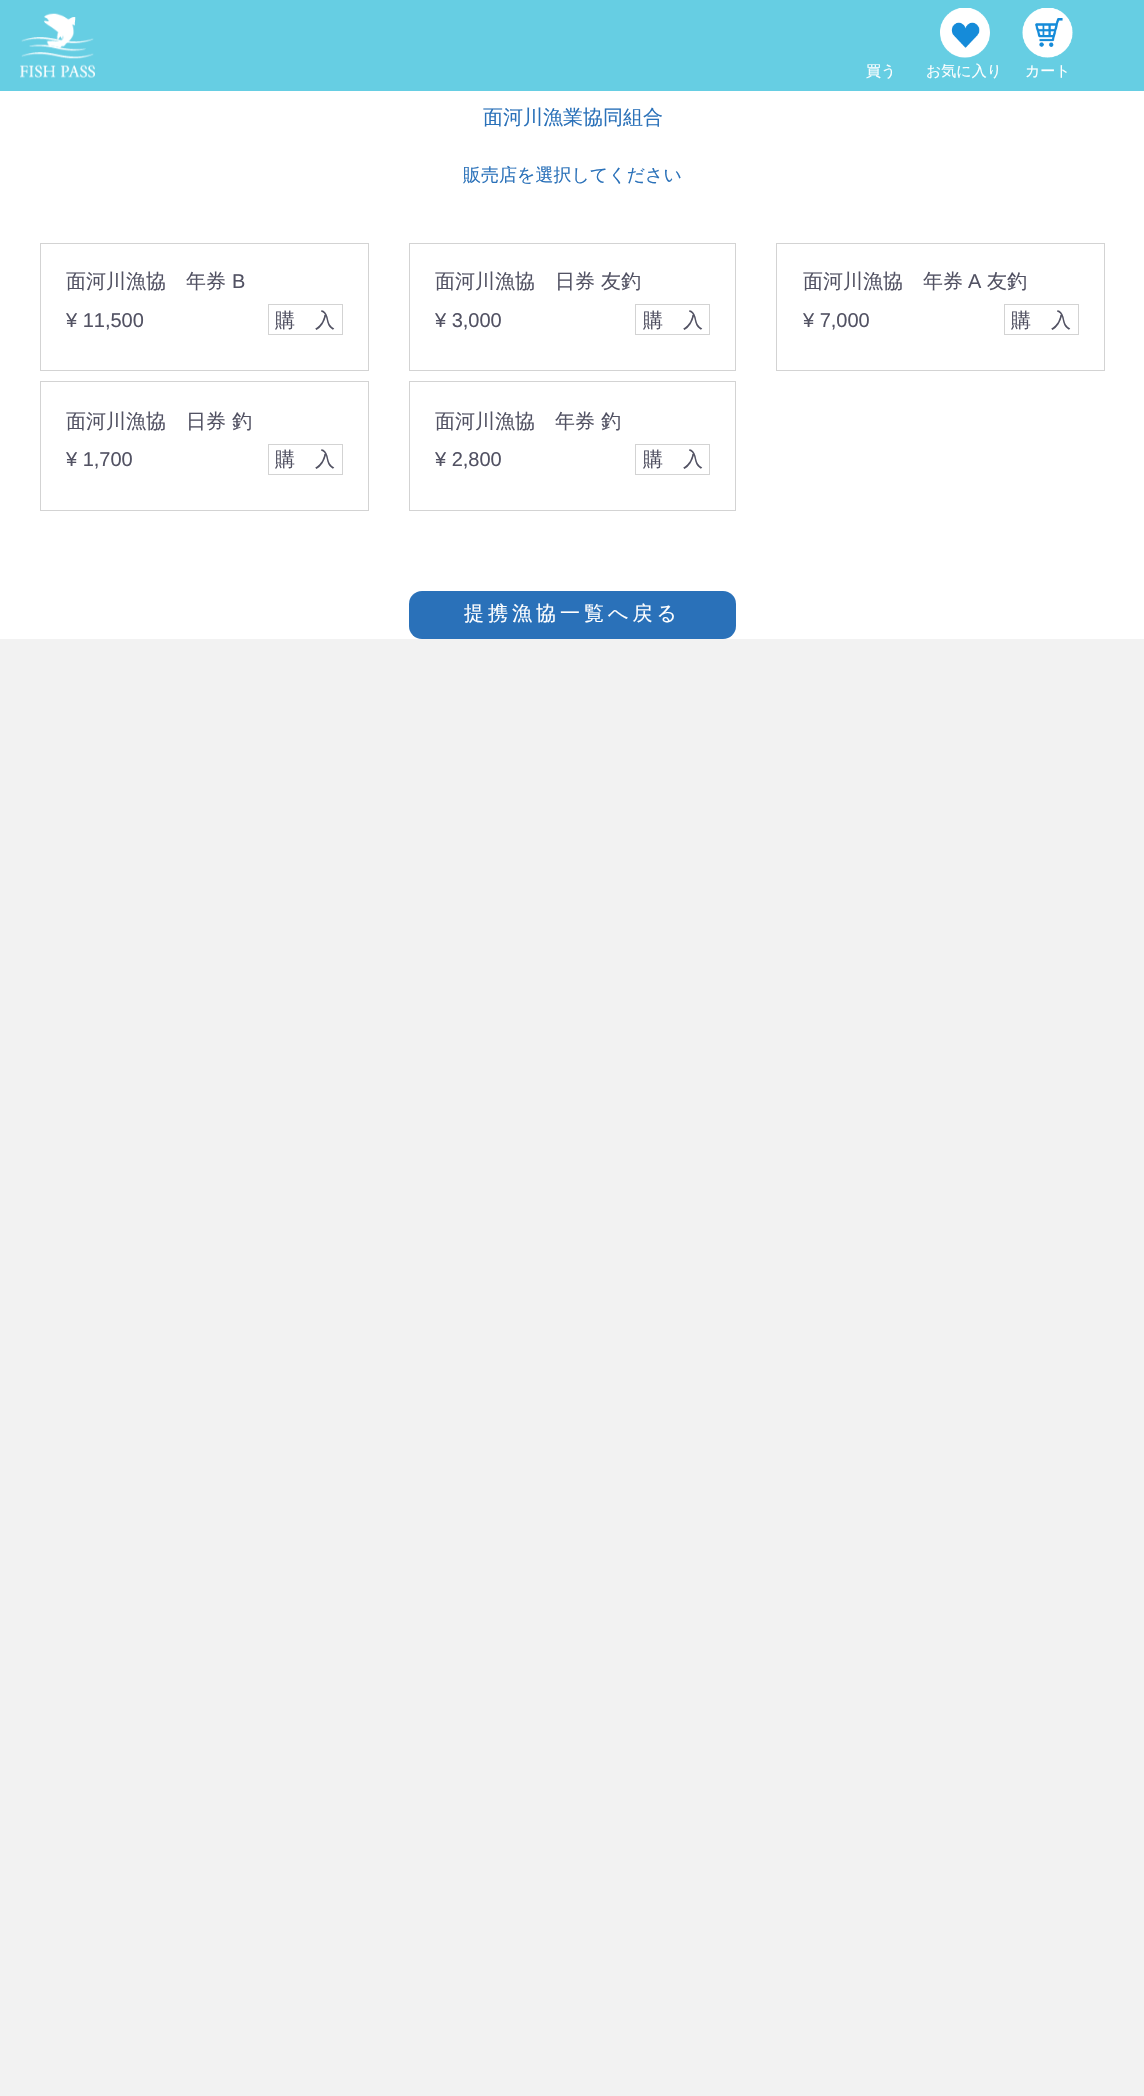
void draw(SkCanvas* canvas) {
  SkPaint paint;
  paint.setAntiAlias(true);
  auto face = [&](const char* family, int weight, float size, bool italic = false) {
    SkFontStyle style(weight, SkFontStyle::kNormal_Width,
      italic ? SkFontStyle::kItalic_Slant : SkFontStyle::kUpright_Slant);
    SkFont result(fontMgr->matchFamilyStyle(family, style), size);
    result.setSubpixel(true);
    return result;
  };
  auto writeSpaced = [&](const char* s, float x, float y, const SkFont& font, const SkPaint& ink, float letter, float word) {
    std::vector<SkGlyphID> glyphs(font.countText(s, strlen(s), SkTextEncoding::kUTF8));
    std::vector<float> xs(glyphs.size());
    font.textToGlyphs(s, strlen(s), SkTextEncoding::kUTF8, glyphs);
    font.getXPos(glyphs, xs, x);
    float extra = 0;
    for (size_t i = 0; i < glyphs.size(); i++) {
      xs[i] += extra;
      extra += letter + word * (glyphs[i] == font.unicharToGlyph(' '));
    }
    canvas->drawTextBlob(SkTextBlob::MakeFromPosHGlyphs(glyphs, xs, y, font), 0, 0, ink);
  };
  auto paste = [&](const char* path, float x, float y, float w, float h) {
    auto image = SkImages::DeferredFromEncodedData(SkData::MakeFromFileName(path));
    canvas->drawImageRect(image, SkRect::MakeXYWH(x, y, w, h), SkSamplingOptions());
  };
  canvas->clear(0xfff2f2f2);
  paint.setColor(0xff66cee3);
  canvas->drawRect(SkRect::MakeXYWH(0, 0, 1144, 91), paint);
  paste("img/1.png", 20, 13, 75, 65);
  paste("img/2.png", 940, 8, 50, 50);
  paste("img/3.png", 1022, 8, 51, 50);
  paint.setColor(0xffffffff);
  canvas->drawRect(SkRect::MakeXYWH(0, 91, 1144, 548), paint);
  paint.setStroke(true);
  paint.setStrokeWidth(1);
  paint.setColor(0xffd3d3d3);
  canvas->drawRect(SkRect::MakeXYWH(40.5f, 243.5f, 328, 127), paint);
  canvas->drawRect(SkRect::MakeXYWH(268.5f, 304.5f, 74, 30), paint);
  canvas->drawRect(SkRect::MakeXYWH(409.5f, 243.5f, 326, 127), paint);
  canvas->drawRect(SkRect::MakeXYWH(635.5f, 304.5f, 74, 30), paint);
  canvas->drawRect(SkRect::MakeXYWH(776.5f, 243.5f, 328, 127), paint);
  canvas->drawRect(SkRect::MakeXYWH(1004.5f, 304.5f, 74, 30), paint);
  canvas->drawRect(SkRect::MakeXYWH(40.5f, 381.5f, 328, 129), paint);
  canvas->drawRect(SkRect::MakeXYWH(268.5f, 444.5f, 74, 30), paint);
  canvas->drawRect(SkRect::MakeXYWH(409.5f, 381.5f, 326, 129), paint);
  canvas->drawRect(SkRect::MakeXYWH(635.5f, 444.5f, 74, 30), paint);
  paint.setStroke(false);
  paint.setColor(0xff2a71b9);
  canvas->drawRoundRect(SkRect::MakeXYWH(409, 591, 327, 48), 13, 13, paint);
  auto f0 = face("WenQuanYi Zen Hei", 500, 15);
  paint.setColor(0xffffffff);
  {
    const struct { const char* s; float x, y; } items[] = {
      {"買う", 866, 76},
      {"お気に入り", 926, 76},
      {"カート", 1025, 76},
    };
    for (auto [s, x, y] : items) {
      canvas->drawString(s, x, y, f0, paint);
    }
  }
  auto f1 = face("WenQuanYi Zen Hei", 500, 20);
  paint.setColor(0xff2a71b9);
  canvas->drawString("面河川漁業協同組合", 483, 124, f1, paint);
  auto f2 = face("WenQuanYi Zen Hei", 500, 18);
  canvas->drawString("販売店を選択してください", 463, 181, f2, paint);
  paint.setColor(0xff525263);
  canvas->drawString("面河川漁協　年券", 66, 288, f1, paint);
  auto f3 = face("Liberation Sans", 400, 20);
  canvas->drawString("B", 232, 288, f3, paint);
  canvas->drawString("¥ 11,500", 66, 327, f3, paint);
  canvas->drawString("購　入", 275, 327, f1, paint);
  canvas->drawString("面河川漁協　日券 友釣", 435, 288, f1, paint);
  canvas->drawString("¥ 3,000", 435, 327, f3, paint);
  canvas->drawString("購　入", 643, 327, f1, paint);
  canvas->drawString("面河川漁協　年券", 803, 288, f1, paint);
  canvas->drawString("A", 968, 288, f3, paint);
  canvas->drawString("友釣", 987, 288, f1, paint);
  canvas->drawString("¥ 7,000", 803, 327, f3, paint);
  canvas->drawString("購　入", 1011, 327, f1, paint);
  canvas->drawString("面河川漁協　日券 釣", 66, 428, f1, paint);
  canvas->drawString("¥ 1,700", 66, 466, f3, paint);
  canvas->drawString("購　入", 275, 466, f1, paint);
  canvas->drawString("面河川漁協　年券 釣", 435, 428, f1, paint);
  canvas->drawString("¥ 2,800", 435, 466, f3, paint);
  canvas->drawString("購　入", 643, 466, f1, paint);
  paint.setColor(0xffffffff);
  writeSpaced("提携漁協一覧へ戻る", 464, 620, f1, paint, 4, 0);
}
